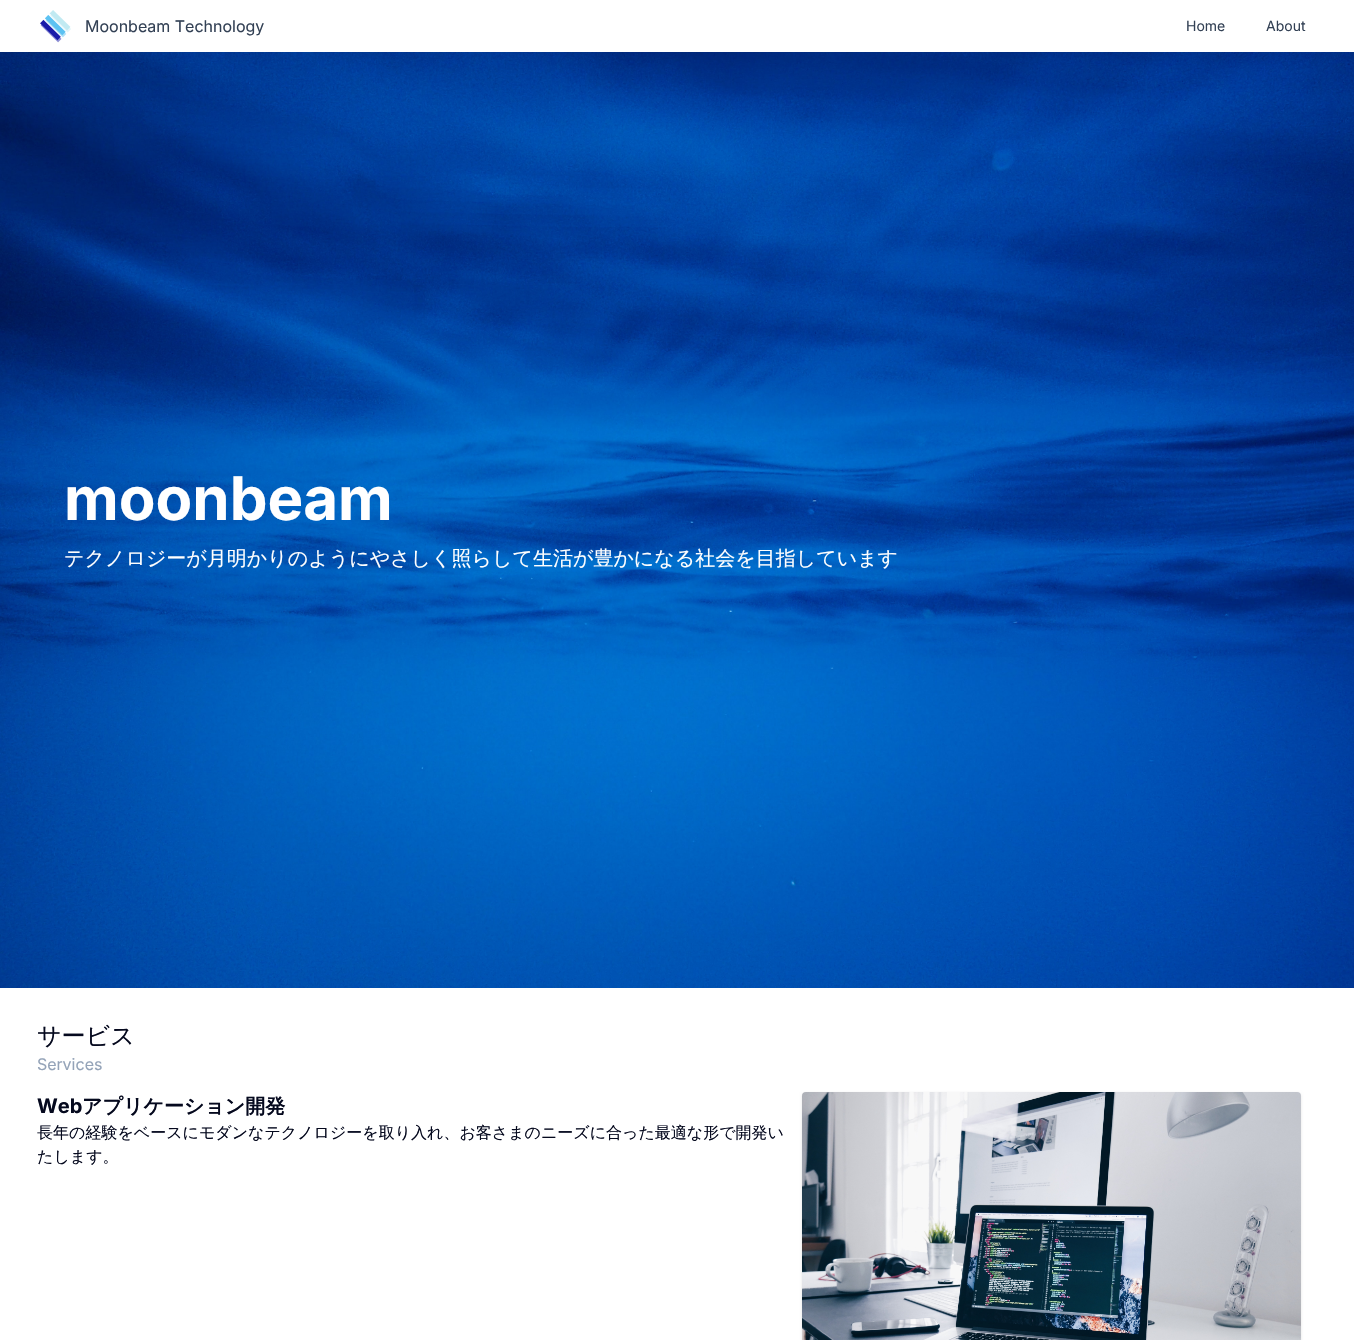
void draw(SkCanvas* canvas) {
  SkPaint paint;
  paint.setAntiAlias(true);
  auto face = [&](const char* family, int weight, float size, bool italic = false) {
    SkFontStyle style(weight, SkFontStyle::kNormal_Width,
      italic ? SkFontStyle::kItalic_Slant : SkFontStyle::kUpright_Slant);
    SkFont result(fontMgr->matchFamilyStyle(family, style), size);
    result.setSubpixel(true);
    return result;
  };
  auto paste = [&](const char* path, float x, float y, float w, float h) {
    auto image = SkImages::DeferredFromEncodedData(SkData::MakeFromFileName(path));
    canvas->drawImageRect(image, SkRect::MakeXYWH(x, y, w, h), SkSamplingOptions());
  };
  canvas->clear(0xffffffff);
  paste("img/1.png", 40, 10, 31, 33);
  paste("img/2.png", 0, 52, 1354, 936);
  paint.setColor(0x1a000000);
  paint.setMaskFilter(SkMaskFilter::MakeBlur(kNormal_SkBlurStyle, 1.5f));
  canvas->drawRoundRect(SkRect::MakeXYWH(802, 1093, 499, 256), 4, 4, paint);
  paint.setMaskFilter(nullptr);
  paste("img/3.png", 802, 1092, 499, 248);
  auto f0 = face("Inter", 400, 16);
  paint.setColor(0xff334155);
  canvas->drawString("Moonbeam Technology", 85, 32, f0, paint);
  auto f1 = face("Inter", 400, 14);
  canvas->drawString("Home", 1186, 31, f1, paint);
  canvas->drawString("About", 1266, 31, f1, paint);
  auto f2 = face("Inter", 700, 60);
  paint.setColor(0xffffffff);
  canvas->drawString("moonbeam", 64, 520, f2, paint);
  auto f3 = face("WenQuanYi Zen Hei", 500, 20);
  canvas->drawString("テクノロジーが月明かりのようにやさしく照らして生活が豊かになる社会を目指しています", 64, 565, f3, paint);
  auto f4 = face("WenQuanYi Zen Hei", 500, 24);
  paint.setColor(0xff05091e);
  canvas->drawString("サービス", 37, 1044, f4, paint);
  paint.setColor(0xff94a3b8);
  canvas->drawString("Services", 37, 1070, f0, paint);
  auto f5 = face("Inter", 700, 20);
  paint.setColor(0xff05091e);
  canvas->drawString("Web", 37, 1113, f5, paint);
  auto f6 = face("WenQuanYi Zen Hei", 700, 20);
  canvas->drawString("アプリケーション開発", 82, 1113, f6, paint);
  auto f7 = face("WenQuanYi Zen Hei", 500, 16);
  canvas->drawString("長年の経験をベースにモダンなテクノロジーを取り入れ、お客さまのニーズに合った最適な形で開発い", 37, 1138, f7, paint);
  canvas->drawString("たします。", 37, 1162, f7, paint);
}
